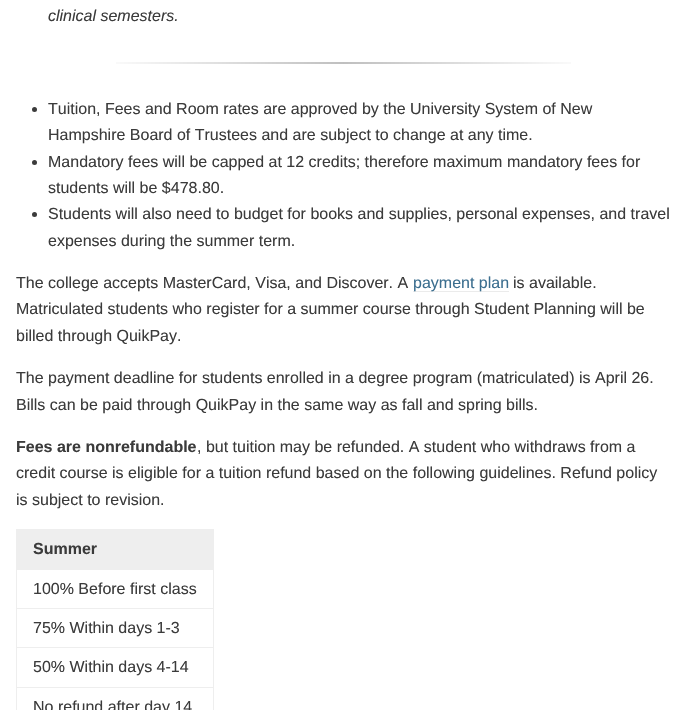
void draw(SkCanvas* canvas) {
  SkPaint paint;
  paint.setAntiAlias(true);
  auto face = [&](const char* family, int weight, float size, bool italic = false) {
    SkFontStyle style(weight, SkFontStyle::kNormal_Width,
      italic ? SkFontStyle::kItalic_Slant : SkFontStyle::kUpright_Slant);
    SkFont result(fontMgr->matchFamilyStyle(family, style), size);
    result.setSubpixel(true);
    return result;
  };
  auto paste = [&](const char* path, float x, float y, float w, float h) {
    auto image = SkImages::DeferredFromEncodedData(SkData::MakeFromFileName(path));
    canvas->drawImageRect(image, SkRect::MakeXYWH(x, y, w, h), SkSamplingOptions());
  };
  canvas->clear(0xffffffff);
  paste("img/1.png", 116, 62, 455, 2);
  paint.setColor(0xff3b3b3b);
  canvas->drawCircle(34.5f, 109.5f, 2.5f, paint);
  canvas->drawCircle(34.5f, 162.5f, 2.5f, paint);
  canvas->drawCircle(34.5f, 214.5f, 2.5f, paint);
  {
    const struct { float x, y, w, h; SkColor color; } items[] = {
      {413, 291, 96, 1, 0xffebebeb},
      {17, 530, 196, 39, 0xffeeeeee},
      {16, 529, 198, 1, 0xffeeeeee},
      {16, 569, 198, 1, 0xffeeeeee},
      {16, 608, 198, 1, 0xffeeeeee},
      {16, 647, 198, 1, 0xffeeeeee},
      {16, 687, 198, 1, 0xffeeeeee},
      {213, 687, 1, 23, 0xffeeeeee},
      {213, 647, 1, 41, 0xffeeeeee},
      {213, 608, 1, 40, 0xffeeeeee},
      {213, 569, 1, 40, 0xffeeeeee},
      {213, 529, 1, 41, 0xffeeeeee},
      {16, 687, 1, 23, 0xffeeeeee},
      {16, 647, 1, 41, 0xffeeeeee},
      {16, 608, 1, 40, 0xffeeeeee},
      {16, 569, 1, 40, 0xffeeeeee},
      {16, 529, 1, 41, 0xffeeeeee},
    };
    for (auto [x, y, w, h, color] : items) {
      paint.setColor(color);
      canvas->drawRect(SkRect::MakeXYWH(x, y, w, h), paint);
    }
  }
  auto f0 = face("Liberation Sans", 400, 16, true);
  paint.setColor(0xff3b3b3b);
  canvas->drawString("clinical semesters.", 48, 21, f0, paint);
  auto f1 = face("Liberation Sans", 400, 16);
  {
    const struct { const char* s; float x, y; } items[] = {
      {"Tuition, Fees and Room rates are approved by the University System of New", 48, 114},
      {"Hampshire Board of Trustees and are subject to change at any time.", 48, 140},
      {"Mandatory fees will be capped at 12 credits; therefore maximum mandatory fees for", 48, 167},
      {"students will be $478.80.", 48, 193},
      {"Students will also need to budget for books and supplies, personal expenses, and travel", 48, 219},
      {"expenses during the summer term.", 48, 246},
      {"The college accepts MasterCard, Visa, and Discover. A", 16, 288},
    };
    for (auto [s, x, y] : items) {
      canvas->drawString(s, x, y, f1, paint);
    }
  }
  paint.setColor(0xff3b6e8f);
  canvas->drawString("payment plan", 413, 288, f1, paint);
  paint.setColor(0xff3b3b3b);
  {
    const struct { const char* s; float x, y; } items[] = {
      {"is available.", 513, 288},
      {"Matriculated students who register for a summer course through Student Planning will be", 16, 314},
      {"billed through QuikPay.", 16, 341},
      {"The payment deadline for students enrolled in a degree program (matriculated) is April 26.", 16, 383},
      {"Bills can be paid through QuikPay in the same way as fall and spring bills.", 16, 410},
    };
    for (auto [s, x, y] : items) {
      canvas->drawString(s, x, y, f1, paint);
    }
  }
  auto f2 = face("Liberation Sans", 700, 16);
  canvas->drawString("Fees are nonrefundable", 16, 452, f2, paint);
  {
    const struct { const char* s; float x, y; } items[] = {
      {", but tuition may be refunded. A student who withdraws from a", 197, 452},
      {"credit course is eligible for a tuition refund based on the following guidelines. Refund policy", 16, 478},
      {"is subject to revision.", 16, 505},
    };
    for (auto [s, x, y] : items) {
      canvas->drawString(s, x, y, f1, paint);
    }
  }
  canvas->drawString("Summer", 33, 554, f2, paint);
  {
    const struct { const char* s; float x, y; } items[] = {
      {"100% Before first class", 33, 594},
      {"75% Within days 1-3", 33, 633},
      {"50% Within days 4-14", 33, 672},
      {"No refund after day 14", 33, 712},
    };
    for (auto [s, x, y] : items) {
      canvas->drawString(s, x, y, f1, paint);
    }
  }
}
